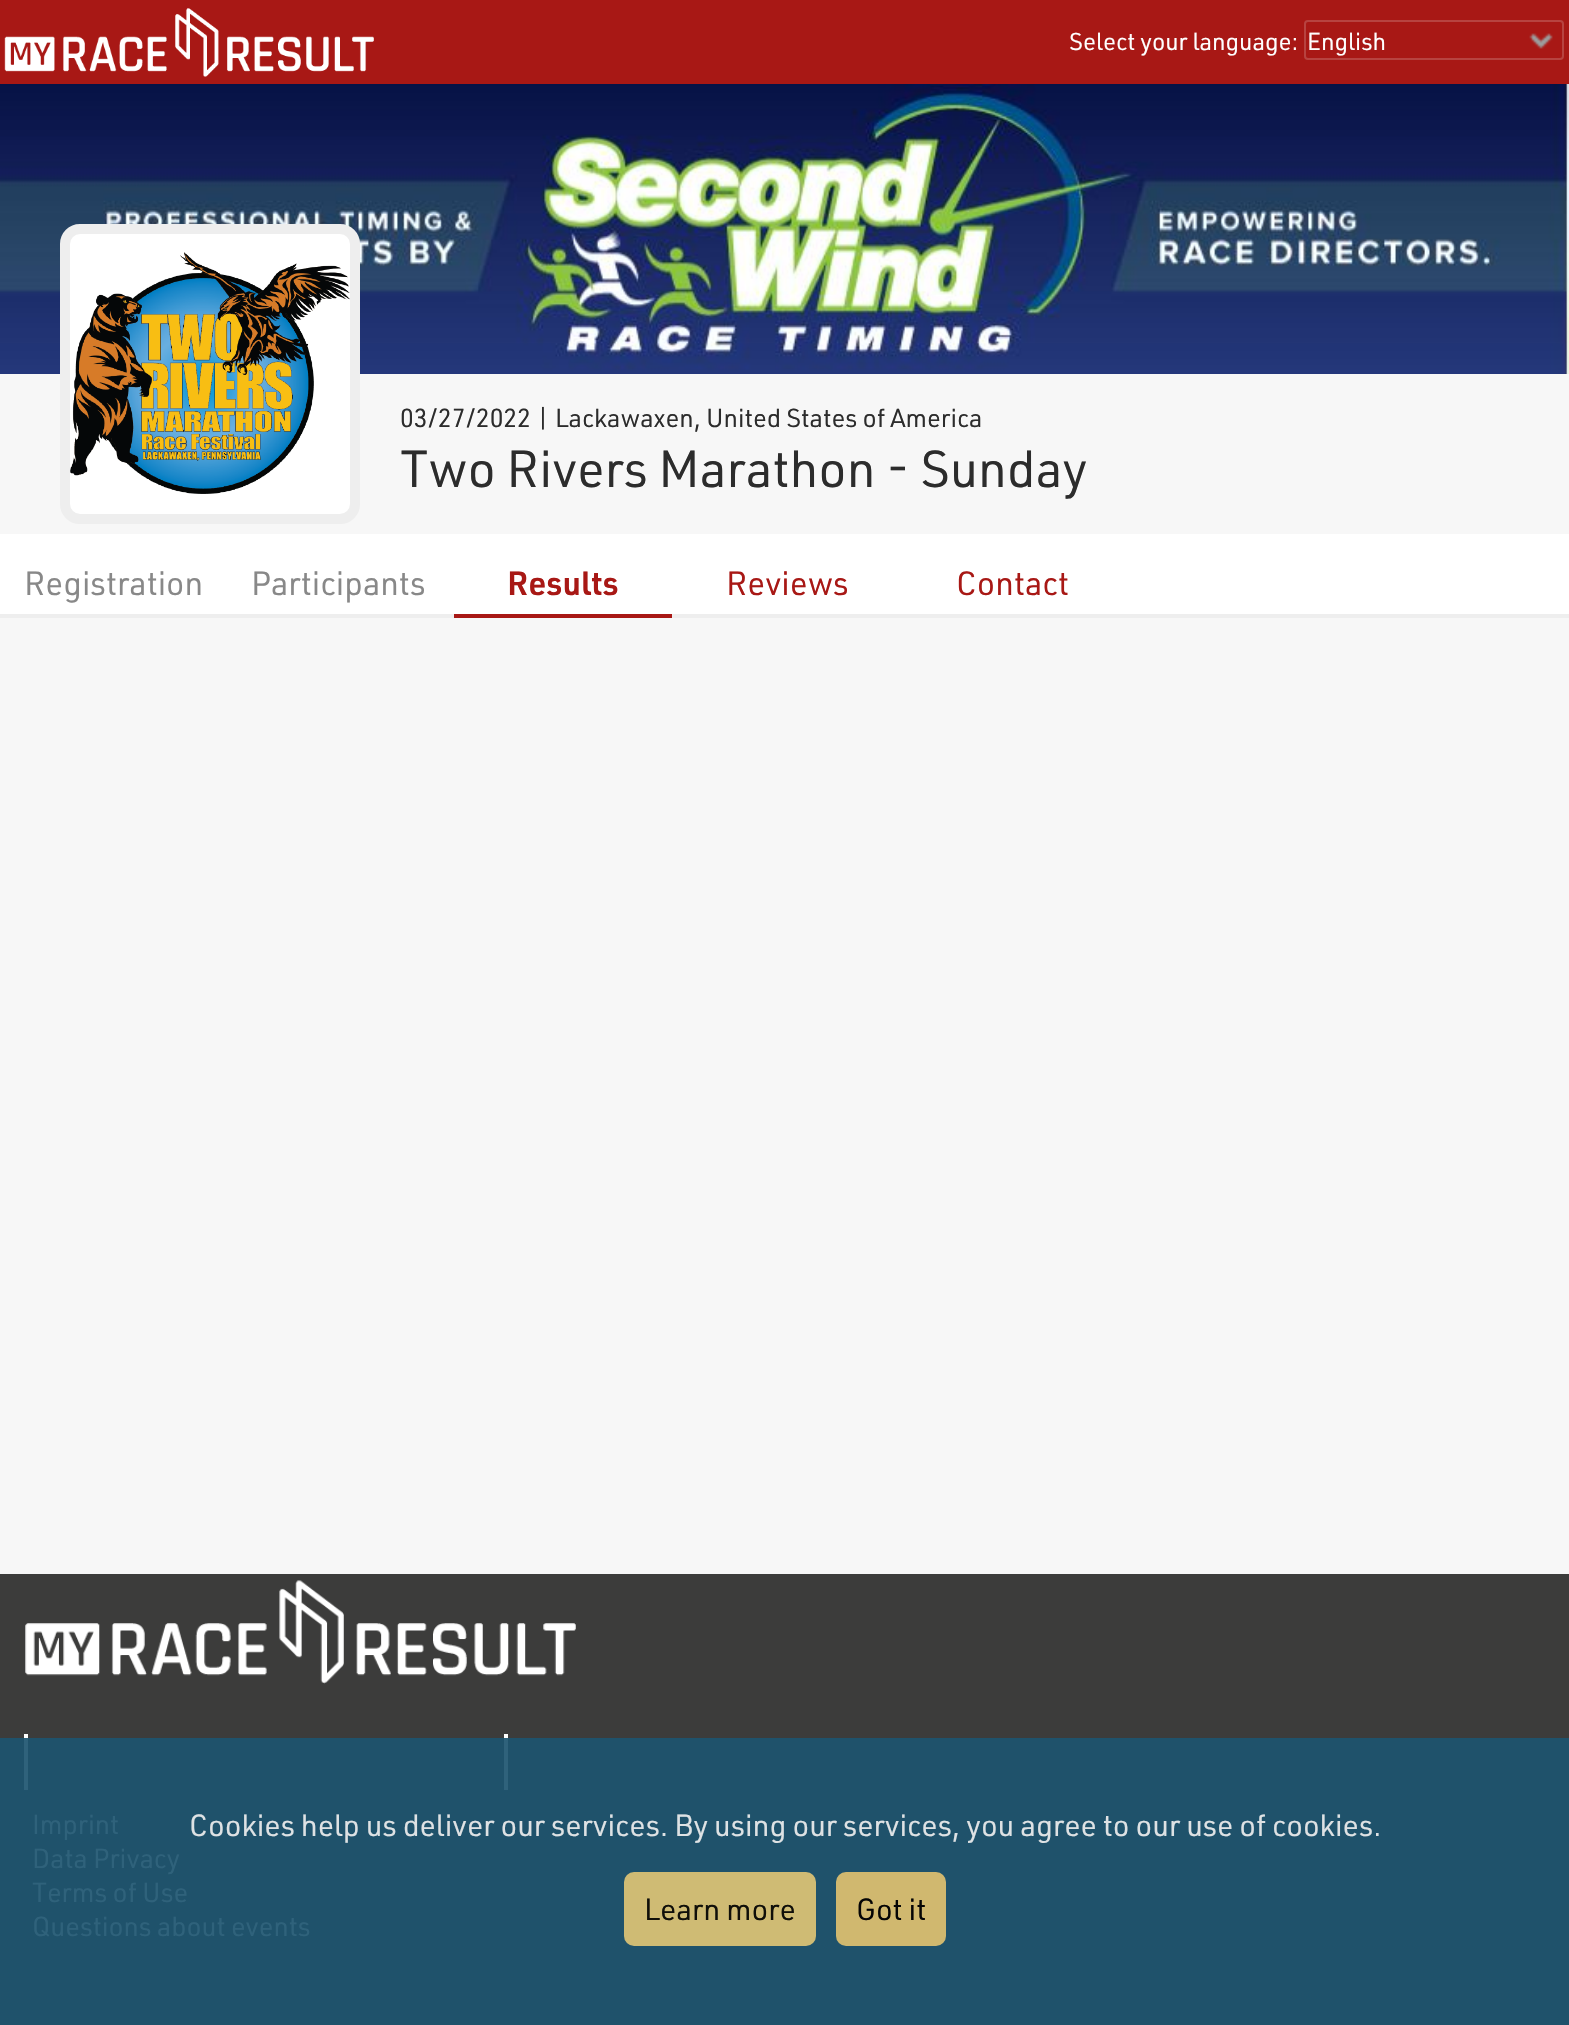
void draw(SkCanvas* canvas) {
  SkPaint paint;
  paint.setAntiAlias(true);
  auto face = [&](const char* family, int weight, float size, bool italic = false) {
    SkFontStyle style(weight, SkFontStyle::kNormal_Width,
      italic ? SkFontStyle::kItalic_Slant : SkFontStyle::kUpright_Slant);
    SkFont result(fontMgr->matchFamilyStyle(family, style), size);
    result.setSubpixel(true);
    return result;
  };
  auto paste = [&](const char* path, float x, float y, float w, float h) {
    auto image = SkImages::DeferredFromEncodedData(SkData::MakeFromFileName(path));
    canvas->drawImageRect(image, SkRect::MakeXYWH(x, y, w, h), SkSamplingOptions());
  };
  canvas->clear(0xfff7f7f7);
  paint.setColor(0xffa81815);
  canvas->drawRect(SkRect::MakeXYWH(0, 0, 1569, 84), paint);
  paste("img/1.png", 4, 8, 370, 69);
  paste("img/2.png", 1529, 33, 24, 16);
  paint.setStroke(true);
  paint.setStrokeWidth(2);
  paint.setColor(0xffb74340);
  canvas->drawRoundRect(SkRect::MakeXYWH(1305, 21, 258, 38), 3, 3, paint);
  paste("img/3.png", 0, 84, 1569, 290);
  paint.setStroke(false);
  paint.setColor(0xffffffff);
  canvas->drawRoundRect(SkRect::MakeXYWH(65, 229, 290, 290), 15, 15, paint);
  paint.setStroke(true);
  paint.setStrokeWidth(10);
  paint.setColor(0xffeeeeee);
  canvas->drawRoundRect(SkRect::MakeXYWH(65, 229, 290, 290), 15, 15, paint);
  paste("img/4.png", 70, 252, 280, 242);
  paint.setStroke(false);
  {
    const struct { float x, y, w, h; SkColor color; } items[] = {
      {0, 534, 1569, 80, 0xffffffff},
      {0, 614, 1569, 4, 0xffeeeeee},
      {454, 614, 218, 4, 0xffa81815},
      {0, 1574, 1569, 164, 0xff3c3c3b},
      {0, 1738, 1569, 287, 0xff1f526b},
    };
    for (auto [x, y, w, h, color] : items) {
      paint.setColor(color);
      canvas->drawRect(SkRect::MakeXYWH(x, y, w, h), paint);
    }
  }
  paste("img/5.png", 25, 1580, 551, 104);
  {
    const struct { float x, y, w, h; SkColor color; } items[] = {
      {504, 1734, 4, 4, 0xffffffff},
      {504, 1738, 4, 52, 0xff2f627b},
      {24, 1734, 4, 4, 0xffffffff},
      {24, 1738, 4, 52, 0xff2f627b},
    };
    for (auto [x, y, w, h, color] : items) {
      paint.setColor(color);
      canvas->drawRect(SkRect::MakeXYWH(x, y, w, h), paint);
    }
  }
  paint.setColor(0xebddc374);
  canvas->drawRoundRect(SkRect::MakeXYWH(624, 1872, 192, 74), 10, 10, paint);
  paint.setColor(0xffd0b86f);
  canvas->drawRoundRect(SkRect::MakeXYWH(836, 1872, 110, 74), 10, 10, paint);
  auto f0 = face("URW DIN", 400, 24);
  paint.setColor(0xffffffff);
  canvas->drawString("Select your language:", 1069, 50, f0, paint);
  canvas->drawString("English", 1307, 50, f0, paint);
  auto f1 = face("URW DIN", 400, 25.5f);
  paint.setColor(0xff2c2c2c);
  canvas->drawString("03/27/2022 | Lackawaxen, United States of America", 400, 427, f1, paint);
  auto f2 = face("URW DIN", 400, 51);
  canvas->drawString("Two Rivers Marathon - Sunday", 400, 487, f2, paint);
  auto f3 = face("URW DIN", 400, 33);
  paint.setColor(0xff888888);
  canvas->drawString("Registration", 24, 595, f3, paint);
  canvas->drawString("Participants", 251, 595, f3, paint);
  auto f4 = face("URW DIN", 600, 33);
  paint.setColor(0xffa81815);
  canvas->drawString("Results", 507, 595, f4, paint);
  canvas->drawString("Reviews", 726, 595, f3, paint);
  canvas->drawString("Contact", 956, 595, f3, paint);
  auto f5 = face("URW DIN", 400, 27);
  paint.setColor(0xff2f627b);
  {
    const struct { const char* s; float x, y; } items[] = {
      {"Imprint", 32, 1834},
      {"Data Privacy", 32, 1868},
      {"Terms of Use", 32, 1902},
      {"Questions about events", 32, 1936},
    };
    for (auto [s, x, y] : items) {
      canvas->drawString(s, x, y, f5, paint);
    }
  }
  auto f6 = face("URW DIN", 400, 30);
  paint.setColor(0xffdee2e4);
  canvas->drawString("Cookies help us deliver our services. By using our services, you agree to our use of cookies.", 189, 1836, f6, paint);
  paint.setColor(0xff100f09);
  canvas->drawString("Learn more", 644, 1920, f6, paint);
  paint.setColor(0xff050505);
  canvas->drawString("Got it", 856, 1920, f6, paint);
}
